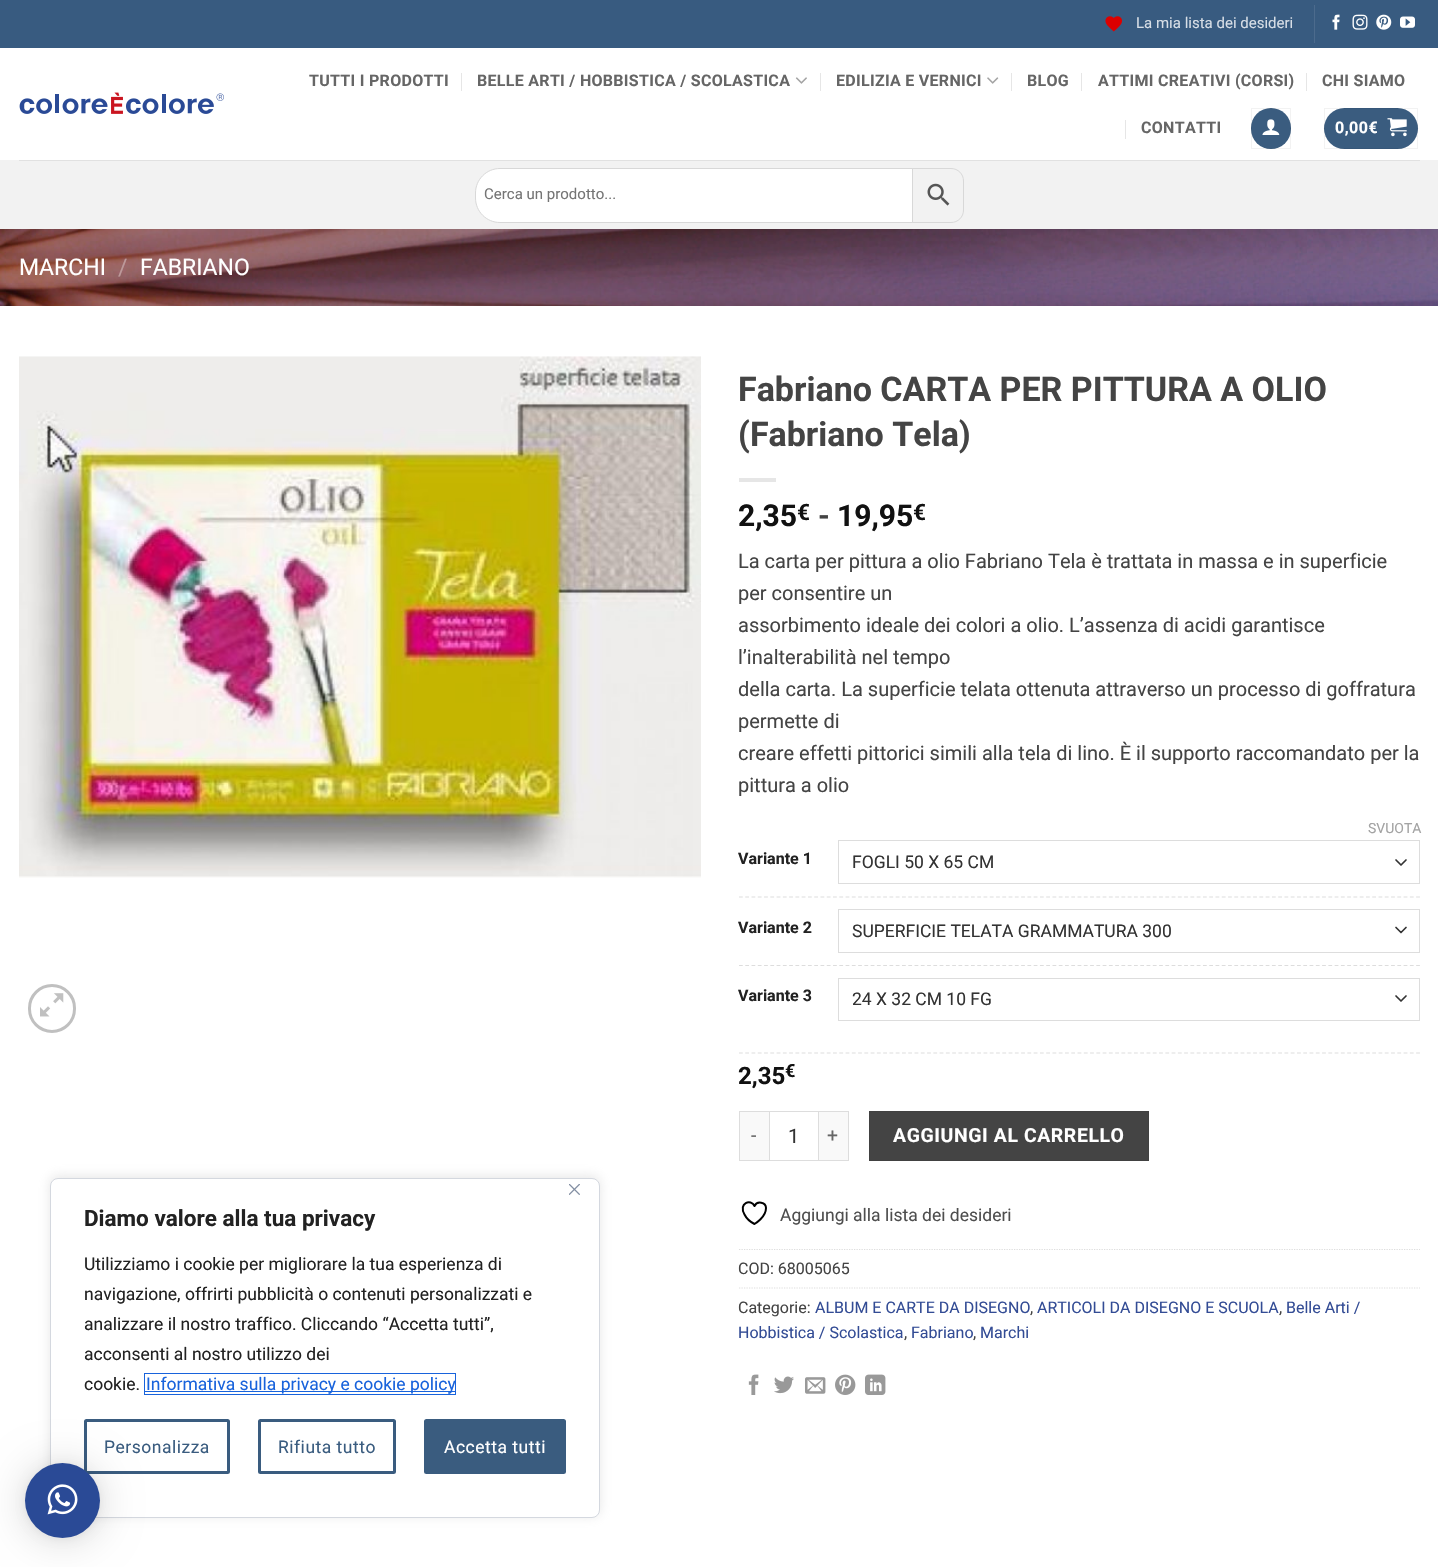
void draw(SkCanvas* canvas) {
  SkPaint paint;
  paint.setAntiAlias(true);
  auto face = [&](const char* family, int weight, float size, bool italic = false) {
    SkFontStyle style(weight, SkFontStyle::kNormal_Width,
      italic ? SkFontStyle::kItalic_Slant : SkFontStyle::kUpright_Slant);
    SkFont result(fontMgr->matchFamilyStyle(family, style), size);
    result.setSubpixel(true);
    return result;
  };
  auto writeSpaced = [&](const char* s, float x, float y, const SkFont& font, const SkPaint& ink, float letter, float word) {
    std::vector<SkGlyphID> glyphs(font.countText(s, strlen(s), SkTextEncoding::kUTF8));
    std::vector<float> xs(glyphs.size());
    font.textToGlyphs(s, strlen(s), SkTextEncoding::kUTF8, glyphs);
    font.getXPos(glyphs, xs, x);
    float extra = 0;
    for (size_t i = 0; i < glyphs.size(); i++) {
      xs[i] += extra;
      extra += letter + word * (glyphs[i] == font.unicharToGlyph(' '));
    }
    canvas->drawTextBlob(SkTextBlob::MakeFromPosHGlyphs(glyphs, xs, y, font), 0, 0, ink);
  };
  auto paste = [&](const char* path, float x, float y, float w, float h) {
    auto image = SkImages::DeferredFromEncodedData(SkData::MakeFromFileName(path));
    canvas->drawImageRect(image, SkRect::MakeXYWH(x, y, w, h), SkSamplingOptions());
  };
  auto shape = [&](const char* data, bool evenOdd = false) {
    SkPath result = *SkParsePath::FromSVGString(data);
    if (evenOdd) result.setFillType(SkPathFillType::kEvenOdd);
    return result;
  };
  canvas->clear(0xffffffff);
  paint.setColor(0xff385b80);
  canvas->drawRect(SkRect::MakeXYWH(0, 0, 1438, 48), paint);
  paste("img/1.png", 1105, 16, 18, 16);
  paint.setColor(0xff4c6b8d);
  canvas->drawRect(SkRect::MakeXYWH(1314, 5, 1, 38), paint);
  paste("img/2.png", 1332, 14, 8, 16);
  paste("img/3.png", 1352, 14, 16, 16);
  paste("img/4.png", 1376, 14, 16, 16);
  paste("img/5.png", 1400, 16, 15, 12);
  paste("img/6.png", 19, 92, 205, 22);
  paint.setColor(0xffe6e6e6);
  canvas->drawRect(SkRect::MakeXYWH(461, 73, 1, 18), paint);
  paste("img/7.png", 795, 77, 12, 7);
  canvas->drawRect(SkRect::MakeXYWH(820, 73, 1, 18), paint);
  paste("img/8.png", 987, 77, 12, 7);
  {
    const struct { float x, y, w, h; SkColor color; } items[] = {
      {1011, 73, 1, 18, 0xffe6e6e6},
      {1081, 73, 1, 18, 0xffe6e6e6},
      {1306, 73, 1, 18, 0xffe6e6e6},
      {1125, 120, 1, 19, 0xffe6e6e6},
    };
    for (auto [x, y, w, h, color] : items) {
      paint.setColor(color);
      canvas->drawRect(SkRect::MakeXYWH(x, y, w, h), paint);
    }
  }
  paint.setColor(0xff3a5c7f);
  canvas->drawRoundRect(SkRect::MakeXYWH(1251, 108, 40, 41), 20, 20, paint);
  paint.setStroke(true);
  paint.setStrokeWidth(1);
  paint.setColor(0x0d000000);
  canvas->drawRect(SkRect::MakeXYWH(1251.5f, 108.5f, 39, 40), paint);
  paste("img/9.png", 1262, 119, 18, 16);
  paint.setStroke(false);
  paint.setColor(0xff3a5c7f);
  canvas->drawRoundRect(SkRect::MakeXYWH(1324, 108, 94, 41), 20.5f, 20.5f, paint);
  paint.setStroke(true);
  paint.setColor(0x0d000000);
  canvas->drawRect(SkRect::MakeXYWH(1324.5f, 108.5f, 93, 40), paint);
  paste("img/10.png", 1387, 118, 20, 19);
  paint.setStroke(false);
  paint.setColor(0xfff2f2f2);
  canvas->drawRect(SkRect::MakeXYWH(0, 160, 1438, 69), paint);
  paint.setColor(0xffe1e1e1);
  canvas->drawRect(SkRect::MakeXYWH(19, 160, 1401, 1), paint);
  paint.setStroke(true);
  paint.setColor(0xffd8d8d8);
  canvas->drawPath(shape("M911.5 168.5H951C958 168.5 963.5 174 963.5 181V210C963.5 217 958 222.5 951 222.5H911.5Z"), paint);
  paint.setStroke(false);
  paint.setColor(0xffffffff);
  canvas->drawPath(shape("M500 168.5H912.5V222.5H500C486.5 222.5 475.5 211.5 475.5 198V193C475.5 179.5 486.5 168.5 500 168.5Z"), paint);
  paint.setStroke(true);
  paint.setColor(0xffd8d8d8);
  canvas->drawPath(shape("M500 168.5H912.5V222.5H500C486.5 222.5 475.5 211.5 475.5 198V193C475.5 179.5 486.5 168.5 500 168.5Z"), paint);
  paste("img/11.png", 927, 183, 23, 23);
  paste("img/12.png", 0, 229, 1438, 77);
  paste("img/13.png", 19, 356, 682, 522);
  paint.setStrokeWidth(3);
  paint.setColor(0xffc0c0c0);
  canvas->drawRoundRect(SkRect::MakeXYWH(29.5f, 985.5f, 45, 46), 22.5f, 22.5f, paint);
  paste("img/14.png", 40, 993, 24, 24);
  paint.setStroke(false);
  paint.setColor(0xffe6e6e6);
  canvas->drawRect(SkRect::MakeXYWH(739, 478, 37, 4), paint);
  paint.setStroke(true);
  paint.setStrokeWidth(1.2f);
  paint.setColor(0xffdddddd);
  paint.setPathEffect(SkDashPathEffect::Make({{3.75f, 2.52f}}, 0));
  canvas->drawPath(shape("M739 965.5H1420"), paint);
  paint.setPathEffect(nullptr);
  paint.setStrokeWidth(1.7f);
  paint.setStrokeCap(SkPaint::kRound_Cap);
  paint.setStrokeJoin(SkPaint::kRound_Join);
  paint.setColor(0xff333333);
  canvas->drawPath(shape("M1396 996L1401 1001L1406 996"), paint);
  paint.setStrokeWidth(1);
  paint.setStrokeCap(SkPaint::kButt_Cap);
  paint.setStrokeJoin(SkPaint::kMiter_Join);
  paint.setColor(0xffdddddd);
  canvas->drawRect(SkRect::MakeXYWH(838.5f, 978.5f, 581, 42), paint);
  paint.setStrokeWidth(1.7f);
  paint.setStrokeCap(SkPaint::kRound_Cap);
  paint.setStrokeJoin(SkPaint::kRound_Join);
  paint.setColor(0xff333333);
  canvas->drawPath(shape("M1396 860L1401 865L1406 860"), paint);
  paint.setStrokeWidth(1);
  paint.setStrokeCap(SkPaint::kButt_Cap);
  paint.setStrokeJoin(SkPaint::kMiter_Join);
  paint.setColor(0xffdddddd);
  canvas->drawRect(SkRect::MakeXYWH(838.5f, 840.5f, 581, 43), paint);
  paint.setStrokeWidth(1.2f);
  paint.setPathEffect(SkDashPathEffect::Make({{3.75f, 2.52f}}, 0));
  canvas->drawPath(shape("M739 897H1420"), paint);
  paint.setPathEffect(nullptr);
  paint.setStrokeWidth(1.7f);
  paint.setStrokeCap(SkPaint::kRound_Cap);
  paint.setStrokeJoin(SkPaint::kRound_Join);
  paint.setColor(0xff333333);
  canvas->drawPath(shape("M1396 927.5L1401 932.5L1406 927.5"), paint);
  paint.setStrokeWidth(1);
  paint.setStrokeCap(SkPaint::kButt_Cap);
  paint.setStrokeJoin(SkPaint::kMiter_Join);
  paint.setColor(0xffdddddd);
  canvas->drawRect(SkRect::MakeXYWH(838.5f, 909.5f, 581, 43), paint);
  paint.setStrokeWidth(1.2f);
  paint.setPathEffect(SkDashPathEffect::Make({{3.75f, 2.52f}}, 0));
  canvas->drawPath(shape("M739 1053H1420"), paint);
  paint.setPathEffect(nullptr);
  paint.setStroke(false);
  {
    const struct { float x, y, w, h; SkColor color; } items[] = {
      {740, 1112, 29, 48, 0xfff9f9f9},
      {739, 1111, 30, 1, 0xffdddddd},
      {739, 1160, 30, 1, 0xffdddddd},
      {739, 1111, 1, 50, 0xffdddddd},
    };
    for (auto [x, y, w, h, color] : items) {
      paint.setColor(color);
      canvas->drawRect(SkRect::MakeXYWH(x, y, w, h), paint);
    }
  }
  paint.setStroke(true);
  paint.setStrokeWidth(1);
  canvas->drawRect(SkRect::MakeXYWH(769.5f, 1111.5f, 49, 49), paint);
  paint.setStroke(false);
  {
    const struct { float x, y, w, h; SkColor color; } items[] = {
      {819, 1112, 29, 48, 0xfff9f9f9},
      {819, 1111, 30, 1, 0xffdddddd},
      {848, 1111, 1, 50, 0xffdddddd},
      {819, 1160, 30, 1, 0xffdddddd},
    };
    for (auto [x, y, w, h, color] : items) {
      paint.setColor(color);
      canvas->drawRect(SkRect::MakeXYWH(x, y, w, h), paint);
    }
  }
  paint.setColor(0xff444444);
  canvas->drawRect(SkRect::MakeXYWH(869.5f, 1111.5f, 279, 49), paint);
  paint.setStroke(true);
  paint.setColor(0xff414141);
  canvas->drawRect(SkRect::MakeXYWH(869.5f, 1111.5f, 279, 49), paint);
  paint.setStrokeWidth(2);
  paint.setStrokeCap(SkPaint::kRound_Cap);
  paint.setStrokeJoin(SkPaint::kRound_Join);
  paint.setColor(0xff000000);
  canvas->drawPath(shape("M766 1208C766 1202 757 1200.5 754.5 1206C751 1198.5 738 1203 744.5 1214.5C746.5 1218.5 750.5 1222 754.5 1224C754.5 1224 766 1217.5 766 1208Z"), paint);
  paint.setStrokeWidth(1.2f);
  paint.setStrokeCap(SkPaint::kButt_Cap);
  paint.setStrokeJoin(SkPaint::kMiter_Join);
  paint.setColor(0xffdddddd);
  paint.setPathEffect(SkDashPathEffect::Make({{1.25f, 1.25f}}, 0));
  canvas->drawPath(shape("M739 1249.5H1420"), paint);
  paint.setPathEffect(nullptr);
  paint.setPathEffect(SkDashPathEffect::Make({{1.25f, 1.25f}}, 0));
  canvas->drawPath(shape("M739 1288H1420"), paint);
  paint.setPathEffect(nullptr);
  paste("img/15.png", 748, 1374, 11, 21);
  paste("img/16.png", 774, 1376, 20, 18);
  paste("img/17.png", 805, 1377, 21, 17);
  paste("img/18.png", 835, 1374, 21, 21);
  paste("img/19.png", 865, 1374, 21, 21);
  paint.setStroke(false);
  paint.setColor(0x4dacabab);
  paint.setMaskFilter(SkMaskFilter::MakeBlur(kNormal_SkBlurStyle, 6));
  canvas->drawRoundRect(SkRect::MakeXYWH(50, 1176, 550, 340), 8, 8, paint);
  paint.setMaskFilter(nullptr);
  paint.setColor(0xffffffff);
  canvas->drawRoundRect(SkRect::MakeXYWH(50.5f, 1178.5f, 549, 339), 7.5f, 7.5f, paint);
  paint.setStroke(true);
  paint.setStrokeWidth(1);
  paint.setColor(0xffd4d8df);
  canvas->drawRoundRect(SkRect::MakeXYWH(50.5f, 1178.5f, 549, 339), 7.5f, 7.5f, paint);
  paste("img/20.png", 569, 1184, 11, 11);
  paint.setColor(0xff1863dc);
  canvas->drawRect(SkRect::MakeXYWH(144.5f, 1373.5f, 311, 21), paint);
  paint.setStroke(false);
  canvas->drawRect(SkRect::MakeXYWH(145, 1391, 310, 1), paint);
  paint.setStroke(true);
  paint.setStrokeWidth(3);
  paint.setColor(0xff3a5c7f);
  canvas->drawRoundRect(SkRect::MakeXYWH(85.5f, 1420.5f, 143, 52), 1, 1, paint);
  canvas->drawRoundRect(SkRect::MakeXYWH(259.5f, 1420.5f, 135, 52), 1, 1, paint);
  paint.setStroke(false);
  canvas->drawRoundRect(SkRect::MakeXYWH(425.5f, 1420.5f, 139, 52), 1, 1, paint);
  paint.setStroke(true);
  canvas->drawRoundRect(SkRect::MakeXYWH(425.5f, 1420.5f, 139, 52), 1, 1, paint);
  paint.setStroke(false);
  paint.setColor(0x29000000);
  paint.setMaskFilter(SkMaskFilter::MakeBlur(kNormal_SkBlurStyle, 20));
  canvas->drawRoundRect(SkRect::MakeXYWH(25, 1465, 75, 75), 37.5f, 37.5f, paint);
  paint.setMaskFilter(nullptr);
  paint.setColor(0x0f000000);
  paint.setMaskFilter(SkMaskFilter::MakeBlur(kNormal_SkBlurStyle, 4));
  canvas->drawRoundRect(SkRect::MakeXYWH(25, 1464, 75, 75), 37.5f, 37.5f, paint);
  paint.setMaskFilter(nullptr);
  paint.setColor(0xff2a4a96);
  canvas->drawCircle(62.5f, 1500.5f, 37.5f, paint);
  paste("img/21.png", 47, 1484, 31, 31);
  auto f0 = face("Roboto", 400, 15);
  paint.setColor(0xffd7dee6);
  canvas->drawString("La mia lista dei desideri", 1136, 28, f0, paint);
  auto f1 = face("Roboto", 700, 16);
  paint.setColor(0xff666666);
  {
    const struct { const char* s; float x, y; } items[] = {
      {"TUTTI I PRODOTTI", 309, 86},
      {"BELLE ARTI / HOBBISTICA / SCOLASTICA", 477, 86},
      {"EDILIZIA E VERNICI", 836, 86},
      {"BLOG", 1027, 86},
      {"ATTIMI CREATIVI (CORSI)", 1098, 86},
      {"CHI SIAMO", 1322, 86},
      {"CONTATTI", 1141, 133},
    };
    for (auto [s, x, y] : items) {
      writeSpaced(s, x, y, f1, paint, 0.3f, 0);
    }
  }
  paint.setColor(0xffffffff);
  writeSpaced("0,00€", 1335, 133, f1, paint, 0.5f, 0);
  paint.setColor(0xff757575);
  canvas->drawString("Cerca un prodotto...", 484, 199, f0, paint);
  auto f2 = face("Roboto", 400, 23);
  paint.setColor(0xffffffff);
  canvas->drawString("MARCHI", 19, 275, f2, paint);
  paint.setColor(0xffbc999a);
  canvas->drawString("/", 118, 275, f2, paint);
  paint.setColor(0xffffffff);
  canvas->drawString("FABRIANO", 140, 275, f2, paint);
  auto f3 = face("Roboto", 700, 34);
  paint.setColor(0xff444444);
  canvas->drawString("Fabriano CARTA PER PITTURA A OLIO", 738, 401, f3, paint);
  canvas->drawString("(Fabriano Tela)", 738, 446, f3, paint);
  auto f4 = face("Roboto", 700, 30);
  paint.setColor(0xff111111);
  canvas->drawString("2,35", 738, 526, f4, paint);
  auto f5 = face("Roboto", 700, 22.5f);
  canvas->drawString("€", 797, 520, f5, paint);
  paint.setColor(0xff444444);
  canvas->drawString("-", 818, 526, f4, paint);
  paint.setColor(0xff111111);
  canvas->drawString("19,95", 837, 526, f4, paint);
  canvas->drawString("€", 913, 520, f5, paint);
  auto f6 = face("Roboto", 400, 20);
  paint.setColor(0xff444444);
  {
    const struct { const char* s; float x, y; } items[] = {
      {"La carta per pittura a olio Fabriano Tela è trattata in massa e in superficie", 738, 568},
      {"per consentire un", 738, 600},
      {"assorbimento ideale dei colori a olio. L’assenza di acidi garantisce", 738, 632},
      {"l’inalterabilità nel tempo", 738, 664},
      {"della carta. La superficie telata ottenuta attraverso un processo di goffratura", 738, 696},
      {"permette di", 738, 728},
      {"creare effetti pittorici simili alla tela di lino. È il supporto raccomandato per la", 738, 760},
      {"pittura a olio", 738, 792},
    };
    for (auto [s, x, y] : items) {
      canvas->drawString(s, x, y, f6, paint);
    }
  }
  paint.setColor(0xff222222);
  canvas->drawString("Variante 3", 738, 1001, f1, paint);
  auto f7 = face("Roboto", 400, 14);
  paint.setColor(0xffa3a3a3);
  canvas->drawString("SVUOTA", 1368, 833, f7, paint);
  auto f8 = face("Roboto", 400, 17.5f);
  paint.setColor(0xff333333);
  canvas->drawString("24 X 32 CM 10 FG", 852, 1005, f8, paint);
  paint.setColor(0xff222222);
  canvas->drawString("Variante 1", 738, 864, f1, paint);
  paint.setColor(0xff333333);
  canvas->drawString("FOGLI 50 X 65 CM", 852, 868, f8, paint);
  paint.setColor(0xff222222);
  canvas->drawString("Variante 2", 738, 933, f1, paint);
  paint.setColor(0xff333333);
  canvas->drawString("SUPERFICIE TELATA GRAMMATURA 300", 852, 937, f8, paint);
  auto f9 = face("Roboto", 700, 24);
  paint.setColor(0xff111111);
  canvas->drawString("2,35", 738, 1084, f9, paint);
  auto f10 = face("Roboto", 700, 18);
  canvas->drawString("€", 785, 1077, f10, paint);
  auto f11 = face("Roboto", 400, 19.4f);
  paint.setColor(0xff666666);
  writeSpaced("-", 751, 1142, f11, paint, 0.6f, 0);
  paint.setColor(0xff333333);
  canvas->drawString("1", 788, 1143, f6, paint);
  paint.setColor(0xff666666);
  writeSpaced("+", 827, 1142, f11, paint, 0.6f, 0);
  auto f12 = face("Roboto", 700, 19.4f);
  paint.setColor(0xffffffff);
  writeSpaced("AGGIUNGI AL CARRELLO", 893, 1142, f12, paint, 0.6f, 0);
  paint.setColor(0xff4e4e4e);
  canvas->drawString("Aggiungi alla lista dei desideri", 780, 1221, f8, paint);
  auto f13 = face("Roboto", 400, 16);
  paint.setColor(0xff444444);
  canvas->drawString("COD: 68005065", 738, 1274, f13, paint);
  canvas->drawString("Categorie:", 738, 1313, f13, paint);
  paint.setColor(0xff334c95);
  canvas->drawString("ALBUM E CARTE DA DISEGNO", 815, 1313, f13, paint);
  paint.setColor(0xff444444);
  canvas->drawString(",", 1030, 1313, f13, paint);
  paint.setColor(0xff334c95);
  canvas->drawString("ARTICOLI DA DISEGNO E SCUOLA", 1037, 1313, f13, paint);
  paint.setColor(0xff444444);
  canvas->drawString(",", 1279, 1313, f13, paint);
  paint.setColor(0xff334c95);
  canvas->drawString("Belle Arti /", 1286, 1313, f13, paint);
  canvas->drawString("Hobbistica / Scolastica", 738, 1338, f13, paint);
  paint.setColor(0xff444444);
  canvas->drawString(",", 904, 1338, f13, paint);
  paint.setColor(0xff334c95);
  canvas->drawString("Fabriano", 911, 1338, f13, paint);
  paint.setColor(0xff444444);
  canvas->drawString(",", 973, 1338, f13, paint);
  paint.setColor(0xff334c95);
  canvas->drawString("Marchi", 980, 1338, f13, paint);
  paint.setColor(0xff222222);
  canvas->drawString("Diamo valore alla tua privacy", 84, 1226, f5, paint);
  {
    const struct { const char* s; float x, y; } items[] = {
      {"Utilizziamo i cookie per migliorare la tua esperienza di", 84, 1270},
      {"navigazione, offrirti pubblicità o contenuti personalizzati e", 84, 1300},
      {"analizzare il nostro traffico. Cliccando “Accetta tutti”,", 84, 1330},
      {"acconsenti al nostro utilizzo dei", 84, 1360},
      {"cookie.", 84, 1390},
    };
    for (auto [s, x, y] : items) {
      canvas->drawString(s, x, y, f8, paint);
    }
  }
  paint.setColor(0xff1863dc);
  canvas->drawString("Informativa sulla privacy e cookie policy", 146, 1390, f8, paint);
  paint.setColor(0xff3a5c7f);
  writeSpaced("Personalizza", 104, 1453, f8, paint, 0.5f, 0);
  writeSpaced("Rifiuta tutto", 278, 1453, f8, paint, 0.5f, 0);
  paint.setColor(0xffffffff);
  writeSpaced("Accetta tutti", 444, 1453, f8, paint, 0.5f, 0);
}
